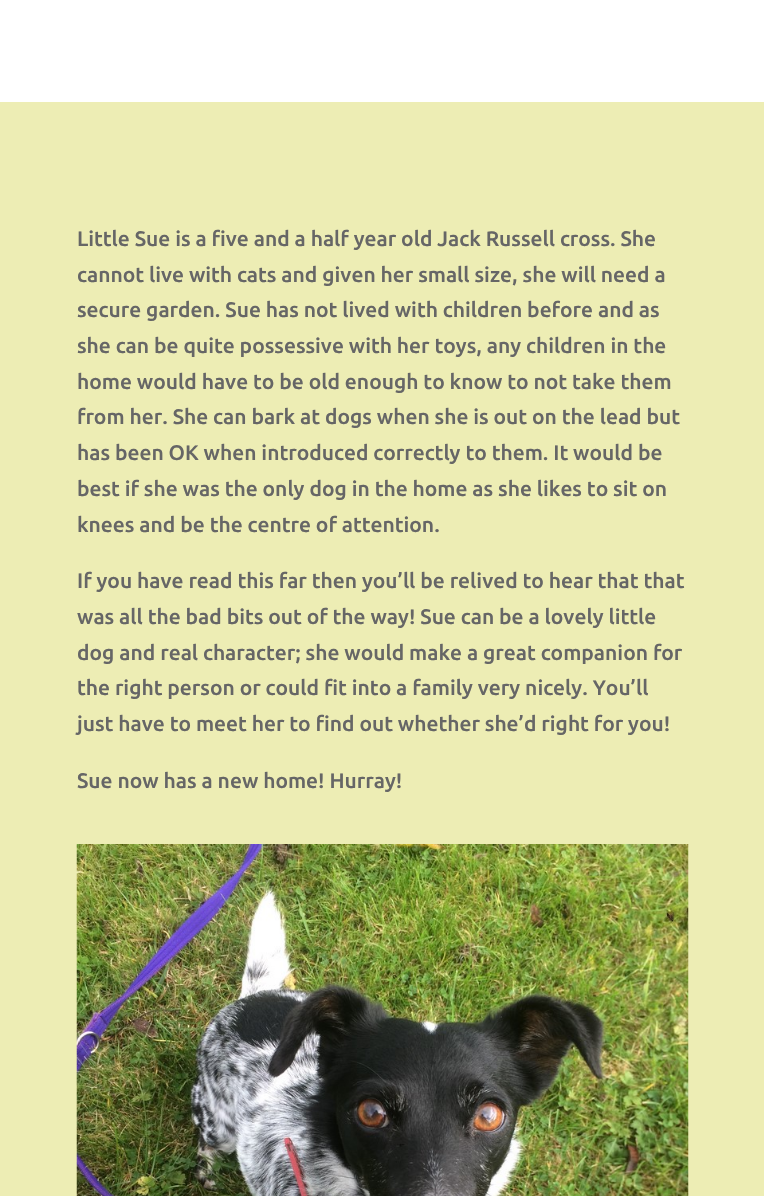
void draw(SkCanvas* canvas) {
  SkPaint paint;
  paint.setAntiAlias(true);
  auto face = [&](const char* family, int weight, float size, bool italic = false) {
    SkFontStyle style(weight, SkFontStyle::kNormal_Width,
      italic ? SkFontStyle::kItalic_Slant : SkFontStyle::kUpright_Slant);
    SkFont result(fontMgr->matchFamilyStyle(family, style), size);
    result.setSubpixel(true);
    return result;
  };
  auto paste = [&](const char* path, float x, float y, float w, float h) {
    auto image = SkImages::DeferredFromEncodedData(SkData::MakeFromFileName(path));
    canvas->drawImageRect(image, SkRect::MakeXYWH(x, y, w, h), SkSamplingOptions());
  };
  canvas->clear(0xffffffff);
  paint.setColor(0xffededb4);
  canvas->drawRect(SkRect::MakeXYWH(0, 102, 764, 1094), paint);
  paste("img/1.png", 76, 844, 613, 352);
  auto f0 = face("Ubuntu", 500, 21);
  paint.setColor(0xff666666);
  {
    const struct { const char* s; float x, y; } items[] = {
      {"Little Sue is a five and a half year old Jack Russell cross. She", 77, 246},
      {"cannot live with cats and given her small size, she will need a", 77, 282},
      {"secure garden. Sue has not lived with children before and as", 77, 317},
      {"she can be quite possessive with her toys, any children in the", 77, 353},
      {"home would have to be old enough to know to not take them", 77, 389},
      {"from her. She can bark at dogs when she is out on the lead but", 77, 424},
      {"has been OK when introduced correctly to them. It would be", 77, 460},
      {"best if she was the only dog in the home as she likes to sit on", 77, 496},
      {"knees and be the centre of attention.", 77, 532},
      {"If you have read this far then you’ll be relived to hear that that", 77, 588},
      {"was all the bad bits out of the way! Sue can be a lovely little", 77, 624},
      {"dog and real character; she would make a great companion for", 77, 660},
      {"the right person or could fit into a family very nicely. You’ll", 77, 695},
      {"just have to meet her to find out whether she’d right for you!", 77, 731},
      {"Sue now has a new home! Hurray!", 77, 788},
    };
    for (auto [s, x, y] : items) {
      canvas->drawString(s, x, y, f0, paint);
    }
  }
}
